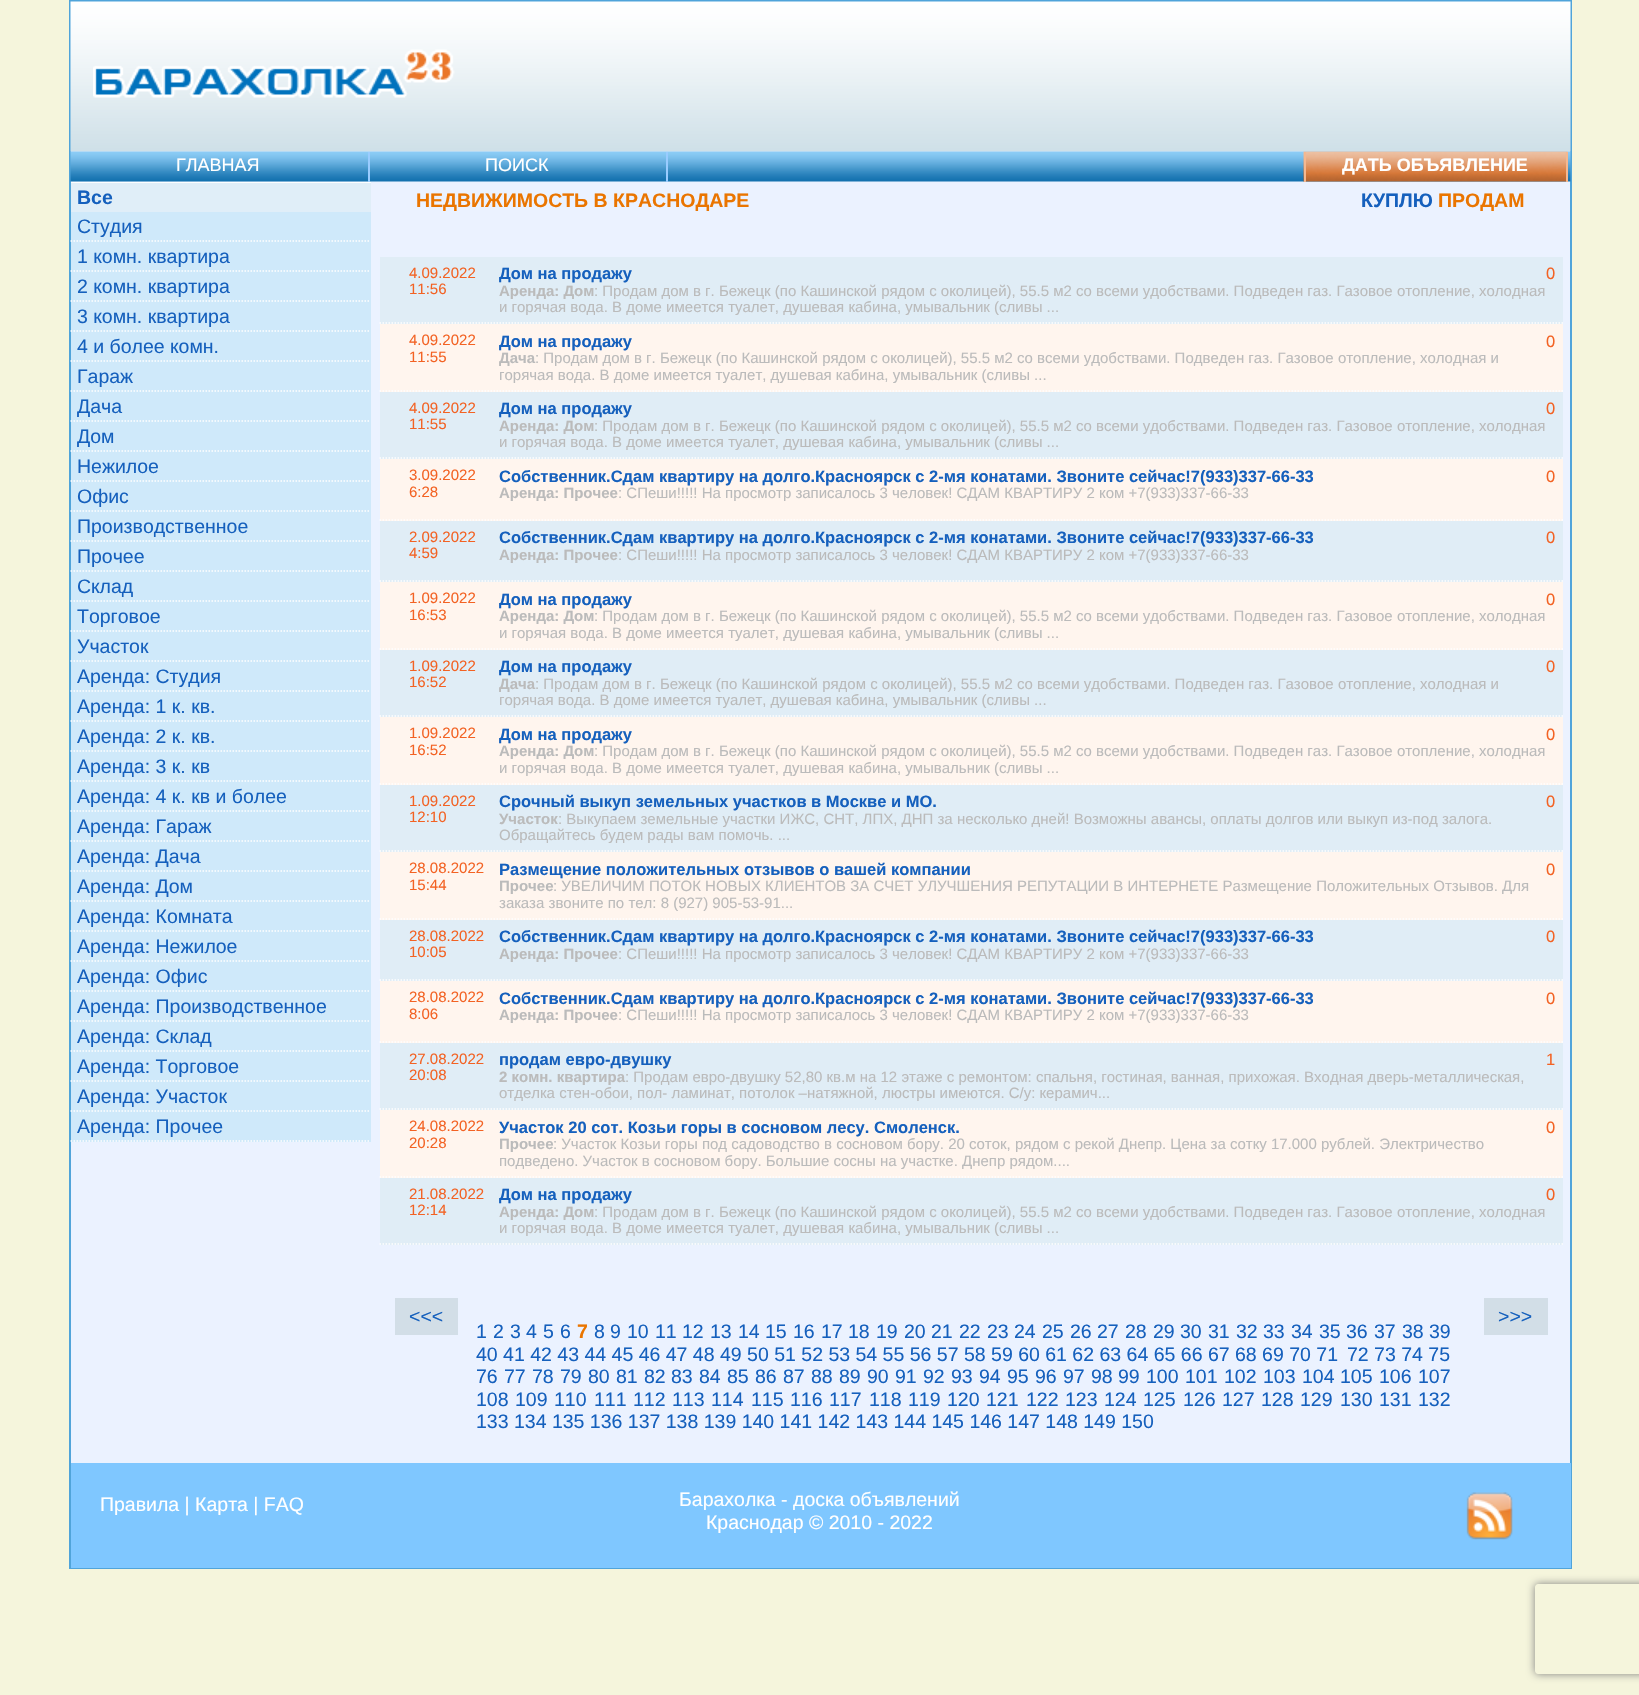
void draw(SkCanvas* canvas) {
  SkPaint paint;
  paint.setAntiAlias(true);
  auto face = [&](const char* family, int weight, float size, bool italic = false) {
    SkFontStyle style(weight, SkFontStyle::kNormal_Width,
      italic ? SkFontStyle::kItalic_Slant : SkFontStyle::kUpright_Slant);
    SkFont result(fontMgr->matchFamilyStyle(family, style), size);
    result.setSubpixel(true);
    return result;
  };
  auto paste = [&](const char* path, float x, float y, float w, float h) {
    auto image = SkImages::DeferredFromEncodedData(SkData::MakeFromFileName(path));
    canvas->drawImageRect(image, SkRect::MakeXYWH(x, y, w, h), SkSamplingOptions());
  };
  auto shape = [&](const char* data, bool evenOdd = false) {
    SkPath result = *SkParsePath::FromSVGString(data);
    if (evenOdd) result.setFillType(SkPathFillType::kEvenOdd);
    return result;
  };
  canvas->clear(0xfff5f5dc);
  paint.setColor(0xffebf2ff);
  canvas->drawRect(SkRect::MakeXYWH(71, 151, 1499, 1312), paint);
  paint.setStroke(true);
  paint.setStrokeWidth(2);
  paint.setColor(0xff50a4da);
  canvas->drawRect(SkRect::MakeXYWH(70, 1, 1501, 1567), paint);
  paste("img/1.png", 70, 1, 1501, 151);
  paste("img/2.png", 93, 49, 362, 49);
  paste("img/3.png", 70, 151, 1501, 31);
  paint.setStroke(false);
  paint.setColor(0xff99ccff);
  canvas->drawRect(SkRect::MakeXYWH(368, 152, 2, 30), paint);
  canvas->drawRect(SkRect::MakeXYWH(666, 152, 2, 30), paint);
  paste("img/4.png", 1303, 151, 265, 31);
  {
    const struct { float x, y, w, h; SkColor color; } items[] = {
      {1566, 152, 2, 30, 0xfff4b890},
      {1304, 152, 2, 30, 0xfff4b890},
      {71, 212, 300, 930, 0xffcfe9fa},
      {71, 182, 300, 1, 0xffffffff},
      {71, 183, 300, 29, 0xffe0eef8},
    };
    for (auto [x, y, w, h, color] : items) {
      paint.setColor(color);
      canvas->drawRect(SkRect::MakeXYWH(x, y, w, h), paint);
    }
  }
  paint.setStroke(true);
  paint.setStrokeWidth(1.5f);
  paint.setColor(0xffffffff);
  paint.setPathEffect(SkDashPathEffect::Make({{1.5f, 1.5f}}, 0));
  canvas->drawPath(shape("M70.5 241H370.5"), paint);
  paint.setPathEffect(nullptr);
  paint.setPathEffect(SkDashPathEffect::Make({{1.5f, 1.5f}}, 0));
  canvas->drawPath(shape("M70.5 271H370.5"), paint);
  paint.setPathEffect(nullptr);
  paint.setPathEffect(SkDashPathEffect::Make({{1.5f, 1.5f}}, 0));
  canvas->drawPath(shape("M70.5 301H370.5"), paint);
  paint.setPathEffect(nullptr);
  paint.setPathEffect(SkDashPathEffect::Make({{1.5f, 1.5f}}, 0));
  canvas->drawPath(shape("M70.5 331H370.5"), paint);
  paint.setPathEffect(nullptr);
  paint.setPathEffect(SkDashPathEffect::Make({{1.5f, 1.5f}}, 0));
  canvas->drawPath(shape("M70.5 361H370.5"), paint);
  paint.setPathEffect(nullptr);
  paint.setPathEffect(SkDashPathEffect::Make({{1.5f, 1.5f}}, 0));
  canvas->drawPath(shape("M70.5 391H370.5"), paint);
  paint.setPathEffect(nullptr);
  paint.setPathEffect(SkDashPathEffect::Make({{1.5f, 1.5f}}, 0));
  canvas->drawPath(shape("M70.5 421H370.5"), paint);
  paint.setPathEffect(nullptr);
  paint.setPathEffect(SkDashPathEffect::Make({{1.5f, 1.5f}}, 0));
  canvas->drawPath(shape("M70.5 451H370.5"), paint);
  paint.setPathEffect(nullptr);
  paint.setPathEffect(SkDashPathEffect::Make({{1.5f, 1.5f}}, 0));
  canvas->drawPath(shape("M70.5 481H370.5"), paint);
  paint.setPathEffect(nullptr);
  paint.setPathEffect(SkDashPathEffect::Make({{1.5f, 1.5f}}, 0));
  canvas->drawPath(shape("M70.5 511H370.5"), paint);
  paint.setPathEffect(nullptr);
  paint.setPathEffect(SkDashPathEffect::Make({{1.5f, 1.5f}}, 0));
  canvas->drawPath(shape("M70.5 541H370.5"), paint);
  paint.setPathEffect(nullptr);
  paint.setPathEffect(SkDashPathEffect::Make({{1.5f, 1.5f}}, 0));
  canvas->drawPath(shape("M70.5 571H370.5"), paint);
  paint.setPathEffect(nullptr);
  paint.setPathEffect(SkDashPathEffect::Make({{1.5f, 1.5f}}, 0));
  canvas->drawPath(shape("M70.5 601H370.5"), paint);
  paint.setPathEffect(nullptr);
  paint.setPathEffect(SkDashPathEffect::Make({{1.5f, 1.5f}}, 0));
  canvas->drawPath(shape("M70.5 631H370.5"), paint);
  paint.setPathEffect(nullptr);
  paint.setPathEffect(SkDashPathEffect::Make({{1.5f, 1.5f}}, 0));
  canvas->drawPath(shape("M70.5 661H370.5"), paint);
  paint.setPathEffect(nullptr);
  paint.setPathEffect(SkDashPathEffect::Make({{1.5f, 1.5f}}, 0));
  canvas->drawPath(shape("M70.5 691H370.5"), paint);
  paint.setPathEffect(nullptr);
  paint.setPathEffect(SkDashPathEffect::Make({{1.5f, 1.5f}}, 0));
  canvas->drawPath(shape("M70.5 721H370.5"), paint);
  paint.setPathEffect(nullptr);
  paint.setPathEffect(SkDashPathEffect::Make({{1.5f, 1.5f}}, 0));
  canvas->drawPath(shape("M70.5 751H370.5"), paint);
  paint.setPathEffect(nullptr);
  paint.setPathEffect(SkDashPathEffect::Make({{1.5f, 1.5f}}, 0));
  canvas->drawPath(shape("M70.5 781H370.5"), paint);
  paint.setPathEffect(nullptr);
  paint.setPathEffect(SkDashPathEffect::Make({{1.5f, 1.5f}}, 0));
  canvas->drawPath(shape("M70.5 811H370.5"), paint);
  paint.setPathEffect(nullptr);
  paint.setPathEffect(SkDashPathEffect::Make({{1.5f, 1.5f}}, 0));
  canvas->drawPath(shape("M70.5 841H370.5"), paint);
  paint.setPathEffect(nullptr);
  paint.setPathEffect(SkDashPathEffect::Make({{1.5f, 1.5f}}, 0));
  canvas->drawPath(shape("M70.5 871H370.5"), paint);
  paint.setPathEffect(nullptr);
  paint.setPathEffect(SkDashPathEffect::Make({{1.5f, 1.5f}}, 0));
  canvas->drawPath(shape("M70.5 901H370.5"), paint);
  paint.setPathEffect(nullptr);
  paint.setPathEffect(SkDashPathEffect::Make({{1.5f, 1.5f}}, 0));
  canvas->drawPath(shape("M70.5 931H370.5"), paint);
  paint.setPathEffect(nullptr);
  paint.setPathEffect(SkDashPathEffect::Make({{1.5f, 1.5f}}, 0));
  canvas->drawPath(shape("M70.5 961H370.5"), paint);
  paint.setPathEffect(nullptr);
  paint.setPathEffect(SkDashPathEffect::Make({{1.5f, 1.5f}}, 0));
  canvas->drawPath(shape("M70.5 991H370.5"), paint);
  paint.setPathEffect(nullptr);
  paint.setPathEffect(SkDashPathEffect::Make({{1.5f, 1.5f}}, 0));
  canvas->drawPath(shape("M70.5 1021H370.5"), paint);
  paint.setPathEffect(nullptr);
  paint.setPathEffect(SkDashPathEffect::Make({{1.5f, 1.5f}}, 0));
  canvas->drawPath(shape("M70.5 1051H370.5"), paint);
  paint.setPathEffect(nullptr);
  paint.setPathEffect(SkDashPathEffect::Make({{1.5f, 1.5f}}, 0));
  canvas->drawPath(shape("M70.5 1081H370.5"), paint);
  paint.setPathEffect(nullptr);
  paint.setPathEffect(SkDashPathEffect::Make({{1.5f, 1.5f}}, 0));
  canvas->drawPath(shape("M70.5 1111H370.5"), paint);
  paint.setPathEffect(nullptr);
  paint.setPathEffect(SkDashPathEffect::Make({{1.5f, 1.5f}}, 0));
  canvas->drawPath(shape("M70.5 1141H370.5"), paint);
  paint.setPathEffect(nullptr);
  paint.setStroke(false);
  paint.setColor(0xffe0edf6);
  canvas->drawRect(SkRect::MakeXYWH(380, 257, 1183, 67), paint);
  paint.setStroke(true);
  paint.setColor(0xffffffff);
  paint.setPathEffect(SkDashPathEffect::Make({{1.5f, 1.5f}}, 0));
  canvas->drawPath(shape("M379.5 323H1563"), paint);
  paint.setPathEffect(nullptr);
  paint.setStroke(false);
  paint.setColor(0xfffff5ee);
  canvas->drawRect(SkRect::MakeXYWH(380, 324, 1183, 68), paint);
  paint.setStroke(true);
  paint.setColor(0xffffffff);
  paint.setPathEffect(SkDashPathEffect::Make({{1.5f, 1.5f}}, 0));
  canvas->drawPath(shape("M379.5 391H1563"), paint);
  paint.setPathEffect(nullptr);
  paint.setStroke(false);
  paint.setColor(0xffe0edf6);
  canvas->drawRect(SkRect::MakeXYWH(380, 392, 1183, 67), paint);
  paint.setStroke(true);
  paint.setColor(0xffffffff);
  paint.setPathEffect(SkDashPathEffect::Make({{1.5f, 1.5f}}, 0));
  canvas->drawPath(shape("M379.5 458H1563"), paint);
  paint.setPathEffect(nullptr);
  paint.setStroke(false);
  paint.setColor(0xfffff5ee);
  canvas->drawRect(SkRect::MakeXYWH(380, 459, 1183, 62), paint);
  paint.setStroke(true);
  paint.setColor(0xffffffff);
  paint.setPathEffect(SkDashPathEffect::Make({{1.5f, 1.5f}}, 0));
  canvas->drawPath(shape("M379.5 520H1563"), paint);
  paint.setPathEffect(nullptr);
  paint.setStroke(false);
  paint.setColor(0xffe0edf6);
  canvas->drawRect(SkRect::MakeXYWH(380, 521, 1183, 61), paint);
  paint.setStroke(true);
  paint.setColor(0xffffffff);
  paint.setPathEffect(SkDashPathEffect::Make({{1.5f, 1.5f}}, 0));
  canvas->drawPath(shape("M379.5 581H1563"), paint);
  paint.setPathEffect(nullptr);
  paint.setStroke(false);
  paint.setColor(0xfffff5ee);
  canvas->drawRect(SkRect::MakeXYWH(380, 582, 1183, 68), paint);
  paint.setStroke(true);
  paint.setColor(0xffffffff);
  paint.setPathEffect(SkDashPathEffect::Make({{1.5f, 1.5f}}, 0));
  canvas->drawPath(shape("M379.5 649H1563"), paint);
  paint.setPathEffect(nullptr);
  paint.setStroke(false);
  paint.setColor(0xffe0edf6);
  canvas->drawRect(SkRect::MakeXYWH(380, 650, 1183, 67), paint);
  paint.setStroke(true);
  paint.setColor(0xffffffff);
  paint.setPathEffect(SkDashPathEffect::Make({{1.5f, 1.5f}}, 0));
  canvas->drawPath(shape("M379.5 716H1563"), paint);
  paint.setPathEffect(nullptr);
  paint.setStroke(false);
  paint.setColor(0xfffff5ee);
  canvas->drawRect(SkRect::MakeXYWH(380, 717, 1183, 68), paint);
  paint.setStroke(true);
  paint.setColor(0xffffffff);
  paint.setPathEffect(SkDashPathEffect::Make({{1.5f, 1.5f}}, 0));
  canvas->drawPath(shape("M379.5 784H1563"), paint);
  paint.setPathEffect(nullptr);
  paint.setStroke(false);
  paint.setColor(0xffe0edf6);
  canvas->drawRect(SkRect::MakeXYWH(380, 785, 1183, 67), paint);
  paint.setStroke(true);
  paint.setColor(0xffffffff);
  paint.setPathEffect(SkDashPathEffect::Make({{1.5f, 1.5f}}, 0));
  canvas->drawPath(shape("M379.5 851H1563"), paint);
  paint.setPathEffect(nullptr);
  paint.setStroke(false);
  paint.setColor(0xfffff5ee);
  canvas->drawRect(SkRect::MakeXYWH(380, 852, 1183, 68), paint);
  paint.setStroke(true);
  paint.setColor(0xffffffff);
  paint.setPathEffect(SkDashPathEffect::Make({{1.5f, 1.5f}}, 0));
  canvas->drawPath(shape("M379.5 919H1563"), paint);
  paint.setPathEffect(nullptr);
  paint.setStroke(false);
  paint.setColor(0xffe0edf6);
  canvas->drawRect(SkRect::MakeXYWH(380, 920, 1183, 61), paint);
  paint.setStroke(true);
  paint.setColor(0xffffffff);
  paint.setPathEffect(SkDashPathEffect::Make({{1.5f, 1.5f}}, 0));
  canvas->drawPath(shape("M379.5 980H1563"), paint);
  paint.setPathEffect(nullptr);
  paint.setStroke(false);
  paint.setColor(0xfffff5ee);
  canvas->drawRect(SkRect::MakeXYWH(380, 981, 1183, 62), paint);
  paint.setStroke(true);
  paint.setColor(0xffffffff);
  paint.setPathEffect(SkDashPathEffect::Make({{1.5f, 1.5f}}, 0));
  canvas->drawPath(shape("M379.5 1042H1563"), paint);
  paint.setPathEffect(nullptr);
  paint.setStroke(false);
  paint.setColor(0xffe0edf6);
  canvas->drawRect(SkRect::MakeXYWH(380, 1043, 1183, 67), paint);
  paint.setStroke(true);
  paint.setColor(0xffffffff);
  paint.setPathEffect(SkDashPathEffect::Make({{1.5f, 1.5f}}, 0));
  canvas->drawPath(shape("M379.5 1109H1563"), paint);
  paint.setPathEffect(nullptr);
  paint.setStroke(false);
  paint.setColor(0xfffff5ee);
  canvas->drawRect(SkRect::MakeXYWH(380, 1110, 1183, 68), paint);
  paint.setStroke(true);
  paint.setColor(0xffffffff);
  paint.setPathEffect(SkDashPathEffect::Make({{1.5f, 1.5f}}, 0));
  canvas->drawPath(shape("M379.5 1177H1563"), paint);
  paint.setPathEffect(nullptr);
  paint.setStroke(false);
  paint.setColor(0xffe0edf6);
  canvas->drawRect(SkRect::MakeXYWH(380, 1178, 1183, 67), paint);
  paint.setStroke(true);
  paint.setColor(0xffffffff);
  paint.setPathEffect(SkDashPathEffect::Make({{1.5f, 1.5f}}, 0));
  canvas->drawPath(shape("M379.5 1244H1563"), paint);
  paint.setPathEffect(nullptr);
  paint.setStroke(false);
  {
    const struct { float x, y, w, h; SkColor color; } items[] = {
      {395, 1298, 63, 37, 0xffd2dee7},
      {1484, 1298, 64, 37, 0xffd2dee7},
      {71, 1463, 1500, 105, 0xff7fc7ff},
    };
    for (auto [x, y, w, h, color] : items) {
      paint.setColor(color);
      canvas->drawRect(SkRect::MakeXYWH(x, y, w, h), paint);
    }
  }
  paste("img/5.png", 1466, 1492, 47, 48);
  canvas->save();
  canvas->clipPath(shape("M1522 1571H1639V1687H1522ZM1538 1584H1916C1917.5 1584 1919 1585.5 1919 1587V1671C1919 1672.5 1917.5 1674 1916 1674H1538C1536.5 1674 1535 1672.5 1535 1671V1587C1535 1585.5 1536.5 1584 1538 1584Z", true), true);
  paint.setColor(0xff808080);
  paint.setMaskFilter(SkMaskFilter::MakeBlur(kNormal_SkBlurStyle, 4));
  canvas->drawRoundRect(SkRect::MakeXYWH(1535, 1584, 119, 90), 3, 3, paint);
  paint.setMaskFilter(nullptr);
  canvas->restore();
  auto f0 = face("Liberation Sans", 400, 18);
  paint.setColor(0xffffffff);
  canvas->drawString("ГЛАВНАЯ", 176, 171, f0, paint);
  canvas->drawString("ПОИСК", 485, 171, f0, paint);
  auto f1 = face("Liberation Sans", 700, 18);
  canvas->drawString("ДАТЬ ОБЪЯВЛЕНИЕ", 1342, 171, f1, paint);
  auto f2 = face("Liberation Sans", 700, 19.5f);
  paint.setColor(0xff1560bd);
  canvas->drawString("Все", 77, 204, f2, paint);
  auto f3 = face("Liberation Sans", 400, 19.5f);
  {
    const struct { const char* s; float x, y; } items[] = {
      {"Студия", 77, 233},
      {"1 комн. квартира", 77, 263},
      {"2 комн. квартира", 77, 293},
      {"3 комн. квартира", 77, 323},
      {"4 и более комн.", 77, 353},
      {"Гараж", 77, 383},
      {"Дача", 77, 413},
      {"Дом", 77, 443},
      {"Нежилое", 77, 473},
      {"Офис", 77, 503},
      {"Производственное", 77, 533},
      {"Прочее", 77, 563},
      {"Склад", 77, 593},
      {"Торговое", 77, 623},
      {"Участок", 77, 653},
      {"Аренда: Студия", 77, 683},
      {"Аренда: 1 к. кв.", 77, 713},
      {"Аренда: 2 к. кв.", 77, 743},
      {"Аренда: 3 к. кв", 77, 773},
      {"Аренда: 4 к. кв и более", 77, 803},
      {"Аренда: Гараж", 77, 833},
      {"Аренда: Дача", 77, 863},
      {"Аренда: Дом", 77, 893},
      {"Аренда: Комната", 77, 923},
      {"Аренда: Нежилое", 77, 953},
      {"Аренда: Офис", 77, 983},
      {"Аренда: Производственное", 77, 1013},
      {"Аренда: Склад", 77, 1043},
      {"Аренда: Торговое", 77, 1073},
      {"Аренда: Участок", 77, 1103},
      {"Аренда: Прочее", 77, 1133},
    };
    for (auto [s, x, y] : items) {
      canvas->drawString(s, x, y, f3, paint);
    }
  }
  paint.setColor(0xffea7500);
  canvas->drawString("НЕДВИЖИМОСТЬ В КРАСНОДАРЕ", 416, 207, f2, paint);
  paint.setColor(0xff1560bd);
  canvas->drawString("КУПЛЮ", 1361, 207, f2, paint);
  paint.setColor(0xffea7500);
  canvas->drawString("ПРОДАМ", 1438, 207, f2, paint);
  auto f4 = face("Liberation Sans", 400, 15);
  paint.setColor(0xfff36223);
  canvas->drawString("4.09.2022", 409, 278, f4, paint);
  canvas->drawString("11:56", 409, 294, f4, paint);
  auto f5 = face("Liberation Sans", 700, 16.5f);
  paint.setColor(0xff1560bd);
  canvas->drawString("Дом на продажу", 499, 279, f5, paint);
  auto f6 = face("Liberation Sans", 400, 16.5f);
  paint.setColor(0xfff36223);
  canvas->drawString("0", 1546, 279, f6, paint);
  auto f7 = face("Liberation Sans", 700, 15);
  paint.setColor(0xffbbbbbb);
  canvas->drawString("Аренда: Дом", 499, 296, f7, paint);
  canvas->drawString(": Продам дом в г. Бежецк (по Кашинской рядом с околицей), 55.5 м2 со всеми удобствами. Подведен газ. Газовое отопление, холодная", 594, 296, f4, paint);
  canvas->drawString("и горячая вода. В доме имеется туалет, душевая кабина, умывальник (сливы ...", 499, 312, f4, paint);
  paint.setColor(0xfff36223);
  canvas->drawString("4.09.2022", 409, 345, f4, paint);
  canvas->drawString("11:55", 409, 362, f4, paint);
  paint.setColor(0xff1560bd);
  canvas->drawString("Дом на продажу", 499, 347, f5, paint);
  paint.setColor(0xfff36223);
  canvas->drawString("0", 1546, 347, f6, paint);
  paint.setColor(0xffbbbbbb);
  canvas->drawString("Дача", 499, 363, f7, paint);
  canvas->drawString(": Продам дом в г. Бежецк (по Кашинской рядом с околицей), 55.5 м2 со всеми удобствами. Подведен газ. Газовое отопление, холодная и", 535, 363, f4, paint);
  canvas->drawString("горячая вода. В доме имеется туалет, душевая кабина, умывальник (сливы ...", 499, 380, f4, paint);
  paint.setColor(0xfff36223);
  canvas->drawString("4.09.2022", 409, 413, f4, paint);
  canvas->drawString("11:55", 409, 429, f4, paint);
  paint.setColor(0xff1560bd);
  canvas->drawString("Дом на продажу", 499, 414, f5, paint);
  paint.setColor(0xfff36223);
  canvas->drawString("0", 1546, 414, f6, paint);
  paint.setColor(0xffbbbbbb);
  canvas->drawString("Аренда: Дом", 499, 431, f7, paint);
  canvas->drawString(": Продам дом в г. Бежецк (по Кашинской рядом с околицей), 55.5 м2 со всеми удобствами. Подведен газ. Газовое отопление, холодная", 594, 431, f4, paint);
  canvas->drawString("и горячая вода. В доме имеется туалет, душевая кабина, умывальник (сливы ...", 499, 447, f4, paint);
  paint.setColor(0xfff36223);
  canvas->drawString("3.09.2022", 409, 480, f4, paint);
  canvas->drawString("6:28", 409, 497, f4, paint);
  paint.setColor(0xff1560bd);
  canvas->drawString("Собственник.Сдам квартиру на долго.Красноярск с 2-мя конатами. Звоните сейчас!7(933)337-66-33", 499, 482, f5, paint);
  paint.setColor(0xfff36223);
  canvas->drawString("0", 1546, 482, f6, paint);
  paint.setColor(0xffbbbbbb);
  canvas->drawString("Аренда: Прочее", 499, 498, f7, paint);
  canvas->drawString(": СПеши!!!!! На просмотр записалось 3 человек! СДАМ КВАРТИРУ 2 ком +7(933)337-66-33", 618, 498, f4, paint);
  paint.setColor(0xfff36223);
  canvas->drawString("2.09.2022", 409, 542, f4, paint);
  canvas->drawString("4:59", 409, 558, f4, paint);
  paint.setColor(0xff1560bd);
  canvas->drawString("Собственник.Сдам квартиру на долго.Красноярск с 2-мя конатами. Звоните сейчас!7(933)337-66-33", 499, 543, f5, paint);
  paint.setColor(0xfff36223);
  canvas->drawString("0", 1546, 543, f6, paint);
  paint.setColor(0xffbbbbbb);
  canvas->drawString("Аренда: Прочее", 499, 560, f7, paint);
  canvas->drawString(": СПеши!!!!! На просмотр записалось 3 человек! СДАМ КВАРТИРУ 2 ком +7(933)337-66-33", 618, 560, f4, paint);
  paint.setColor(0xfff36223);
  canvas->drawString("1.09.2022", 409, 603, f4, paint);
  canvas->drawString("16:53", 409, 620, f4, paint);
  paint.setColor(0xff1560bd);
  canvas->drawString("Дом на продажу", 499, 605, f5, paint);
  paint.setColor(0xfff36223);
  canvas->drawString("0", 1546, 605, f6, paint);
  paint.setColor(0xffbbbbbb);
  canvas->drawString("Аренда: Дом", 499, 621, f7, paint);
  canvas->drawString(": Продам дом в г. Бежецк (по Кашинской рядом с околицей), 55.5 м2 со всеми удобствами. Подведен газ. Газовое отопление, холодная", 594, 621, f4, paint);
  canvas->drawString("и горячая вода. В доме имеется туалет, душевая кабина, умывальник (сливы ...", 499, 638, f4, paint);
  paint.setColor(0xfff36223);
  canvas->drawString("1.09.2022", 409, 671, f4, paint);
  canvas->drawString("16:52", 409, 687, f4, paint);
  paint.setColor(0xff1560bd);
  canvas->drawString("Дом на продажу", 499, 672, f5, paint);
  paint.setColor(0xfff36223);
  canvas->drawString("0", 1546, 672, f6, paint);
  paint.setColor(0xffbbbbbb);
  canvas->drawString("Дача", 499, 689, f7, paint);
  canvas->drawString(": Продам дом в г. Бежецк (по Кашинской рядом с околицей), 55.5 м2 со всеми удобствами. Подведен газ. Газовое отопление, холодная и", 535, 689, f4, paint);
  canvas->drawString("горячая вода. В доме имеется туалет, душевая кабина, умывальник (сливы ...", 499, 705, f4, paint);
  paint.setColor(0xfff36223);
  canvas->drawString("1.09.2022", 409, 738, f4, paint);
  canvas->drawString("16:52", 409, 755, f4, paint);
  paint.setColor(0xff1560bd);
  canvas->drawString("Дом на продажу", 499, 740, f5, paint);
  paint.setColor(0xfff36223);
  canvas->drawString("0", 1546, 740, f6, paint);
  paint.setColor(0xffbbbbbb);
  canvas->drawString("Аренда: Дом", 499, 756, f7, paint);
  canvas->drawString(": Продам дом в г. Бежецк (по Кашинской рядом с околицей), 55.5 м2 со всеми удобствами. Подведен газ. Газовое отопление, холодная", 594, 756, f4, paint);
  canvas->drawString("и горячая вода. В доме имеется туалет, душевая кабина, умывальник (сливы ...", 499, 773, f4, paint);
  paint.setColor(0xfff36223);
  canvas->drawString("1.09.2022", 409, 806, f4, paint);
  canvas->drawString("12:10", 409, 822, f4, paint);
  paint.setColor(0xff1560bd);
  canvas->drawString("Срочный выкуп земельных участков в Москве и МО.", 499, 807, f5, paint);
  paint.setColor(0xfff36223);
  canvas->drawString("0", 1546, 807, f6, paint);
  paint.setColor(0xffbbbbbb);
  canvas->drawString("Участок", 499, 824, f7, paint);
  canvas->drawString(": Выкупаем земельные участки ИЖС, СНТ, ЛПХ, ДНП за несколько дней! Возможны авансы, оплаты долгов или выкуп из-под залога.", 558, 824, f4, paint);
  canvas->drawString("Обращайтесь будем рады вам помочь. ...", 499, 840, f4, paint);
  paint.setColor(0xfff36223);
  canvas->drawString("28.08.2022", 409, 873, f4, paint);
  canvas->drawString("15:44", 409, 890, f4, paint);
  paint.setColor(0xff1560bd);
  canvas->drawString("Размещение положительных отзывов о вашей компании", 499, 875, f5, paint);
  paint.setColor(0xfff36223);
  canvas->drawString("0", 1546, 875, f6, paint);
  paint.setColor(0xffbbbbbb);
  canvas->drawString("Прочее", 499, 891, f7, paint);
  canvas->drawString(": УВЕЛИЧИМ ПОТОК НОВЫХ КЛИЕНТОВ ЗА СЧЕТ УЛУЧШЕНИЯ РЕПУТАЦИИ В ИНТЕРНЕТЕ Размещение Положительных Отзывов. Для", 553, 891, f4, paint);
  canvas->drawString("заказа звоните по тел: 8 (927) 905-53-91...", 499, 908, f4, paint);
  paint.setColor(0xfff36223);
  canvas->drawString("28.08.2022", 409, 941, f4, paint);
  canvas->drawString("10:05", 409, 957, f4, paint);
  paint.setColor(0xff1560bd);
  canvas->drawString("Собственник.Сдам квартиру на долго.Красноярск с 2-мя конатами. Звоните сейчас!7(933)337-66-33", 499, 942, f5, paint);
  paint.setColor(0xfff36223);
  canvas->drawString("0", 1546, 942, f6, paint);
  paint.setColor(0xffbbbbbb);
  canvas->drawString("Аренда: Прочее", 499, 959, f7, paint);
  canvas->drawString(": СПеши!!!!! На просмотр записалось 3 человек! СДАМ КВАРТИРУ 2 ком +7(933)337-66-33", 618, 959, f4, paint);
  paint.setColor(0xfff36223);
  canvas->drawString("28.08.2022", 409, 1002, f4, paint);
  canvas->drawString("8:06", 409, 1019, f4, paint);
  paint.setColor(0xff1560bd);
  canvas->drawString("Собственник.Сдам квартиру на долго.Красноярск с 2-мя конатами. Звоните сейчас!7(933)337-66-33", 499, 1004, f5, paint);
  paint.setColor(0xfff36223);
  canvas->drawString("0", 1546, 1004, f6, paint);
  paint.setColor(0xffbbbbbb);
  canvas->drawString("Аренда: Прочее", 499, 1020, f7, paint);
  canvas->drawString(": СПеши!!!!! На просмотр записалось 3 человек! СДАМ КВАРТИРУ 2 ком +7(933)337-66-33", 618, 1020, f4, paint);
  paint.setColor(0xfff36223);
  canvas->drawString("27.08.2022", 409, 1064, f4, paint);
  canvas->drawString("20:08", 409, 1080, f4, paint);
  paint.setColor(0xff1560bd);
  canvas->drawString("продам евро-двушку", 499, 1065, f5, paint);
  paint.setColor(0xfff36223);
  canvas->drawString("1", 1546, 1065, f6, paint);
  paint.setColor(0xffbbbbbb);
  canvas->drawString("2 комн. квартира", 499, 1082, f7, paint);
  canvas->drawString(": Продам евро-двушку 52,80 кв.м на 12 этаже с ремонтом: спальня, гостиная, ванная, прихожая. Входная дверь-металлическая,", 625, 1082, f4, paint);
  canvas->drawString("отделка стен-обои, пол- ламинат, потолок –натяжной, люстры имеются. С/у: керамич...", 499, 1098, f4, paint);
  paint.setColor(0xfff36223);
  canvas->drawString("24.08.2022", 409, 1131, f4, paint);
  canvas->drawString("20:28", 409, 1148, f4, paint);
  paint.setColor(0xff1560bd);
  canvas->drawString("Участок 20 сот. Козьи горы в сосновом лесу. Смоленск.", 499, 1133, f5, paint);
  paint.setColor(0xfff36223);
  canvas->drawString("0", 1546, 1133, f6, paint);
  paint.setColor(0xffbbbbbb);
  canvas->drawString("Прочее", 499, 1149, f7, paint);
  canvas->drawString(": Участок Козьи горы под садоводство в сосновом бору. 20 соток, рядом с рекой Днепр. Цена за сотку 17.000 рублей. Электричество", 553, 1149, f4, paint);
  canvas->drawString("подведено. Участок в сосновом бору. Большие сосны на участке. Днепр рядом....", 499, 1166, f4, paint);
  paint.setColor(0xfff36223);
  canvas->drawString("21.08.2022", 409, 1199, f4, paint);
  canvas->drawString("12:14", 409, 1215, f4, paint);
  paint.setColor(0xff1560bd);
  canvas->drawString("Дом на продажу", 499, 1200, f5, paint);
  paint.setColor(0xfff36223);
  canvas->drawString("0", 1546, 1200, f6, paint);
  paint.setColor(0xffbbbbbb);
  canvas->drawString("Аренда: Дом", 499, 1217, f7, paint);
  canvas->drawString(": Продам дом в г. Бежецк (по Кашинской рядом с околицей), 55.5 м2 со всеми удобствами. Подведен газ. Газовое отопление, холодная", 594, 1217, f4, paint);
  canvas->drawString("и горячая вода. В доме имеется туалет, душевая кабина, умывальник (сливы ...", 499, 1233, f4, paint);
  paint.setColor(0xff1560bd);
  {
    const struct { const char* s; float x, y; } items[] = {
      {"<<<", 409, 1323},
      {">>>", 1498, 1323},
      {"1", 476, 1338},
      {"2", 493, 1338},
      {"3", 510, 1338},
      {"4", 526, 1338},
      {"5", 543, 1338},
      {"6", 560, 1338},
    };
    for (auto [s, x, y] : items) {
      canvas->drawString(s, x, y, f3, paint);
    }
  }
  paint.setColor(0xffea7500);
  canvas->drawString("7", 577, 1338, f2, paint);
  paint.setColor(0xff1560bd);
  {
    const struct { const char* s; float x, y; } items[] = {
      {"8", 594, 1338},
      {"9", 610, 1338},
      {"10", 627, 1338},
      {"11", 655, 1338},
      {"12", 682, 1338},
      {"13", 710, 1338},
      {"14", 738, 1338},
      {"15", 765, 1338},
      {"16", 793, 1338},
      {"17", 821, 1338},
      {"18", 848, 1338},
      {"19", 876, 1338},
      {"20", 904, 1338},
      {"21", 931, 1338},
      {"22", 959, 1338},
      {"23", 987, 1338},
      {"24", 1014, 1338},
      {"25", 1042, 1338},
      {"26", 1070, 1338},
      {"27", 1097, 1338},
      {"28", 1125, 1338},
      {"29", 1153, 1338},
      {"30", 1180, 1338},
      {"31", 1208, 1338},
      {"32", 1236, 1338},
      {"33", 1263, 1338},
      {"34", 1291, 1338},
      {"35", 1319, 1338},
      {"36", 1346, 1338},
      {"37", 1374, 1338},
      {"38", 1402, 1338},
      {"39", 1429, 1338},
      {"40 41 42 43 44 45 46 47 48 49 50 51 52 53 54 55 56 57 58 59 60 61 62 63 64 65 66 67 68 69 70 71", 476, 1361},
      {"72 73 74 75", 1347, 1361},
      {"76", 476, 1383},
      {"77", 504, 1383},
      {"78", 532, 1383},
      {"79", 560, 1383},
      {"80", 588, 1383},
      {"81", 616, 1383},
      {"82", 644, 1383},
      {"83", 671, 1383},
      {"84", 699, 1383},
      {"85", 727, 1383},
      {"86", 755, 1383},
      {"87", 783, 1383},
      {"88", 811, 1383},
      {"89", 839, 1383},
      {"90", 867, 1383},
      {"91", 895, 1383},
      {"92", 923, 1383},
      {"93", 951, 1383},
      {"94", 979, 1383},
      {"95", 1007, 1383},
      {"96", 1035, 1383},
      {"97", 1063, 1383},
      {"98", 1091, 1383},
      {"99", 1118, 1383},
      {"100", 1146, 1383},
      {"101", 1185, 1383},
      {"102", 1224, 1383},
      {"103", 1263, 1383},
      {"104", 1302, 1383},
      {"105", 1340, 1383},
      {"106", 1379, 1383},
      {"107", 1418, 1383},
      {"108", 476, 1406},
      {"109", 515, 1406},
      {"110", 554, 1406},
      {"111", 594, 1406},
      {"112", 633, 1406},
      {"113", 672, 1406},
      {"114", 711, 1406},
      {"115", 751, 1406},
      {"116", 790, 1406},
      {"117", 829, 1406},
      {"118", 869, 1406},
      {"119", 908, 1406},
      {"120", 947, 1406},
      {"121", 986, 1406},
      {"122", 1026, 1406},
      {"123", 1065, 1406},
      {"124", 1104, 1406},
      {"125", 1143, 1406},
      {"126", 1183, 1406},
      {"127", 1222, 1406},
      {"128", 1261, 1406},
      {"129", 1300, 1406},
      {"130", 1340, 1406},
      {"131", 1379, 1406},
      {"132", 1418, 1406},
      {"133 134 135 136 137 138 139 140 141 142 143 144 145 146 147 148 149 150", 476, 1428},
    };
    for (auto [s, x, y] : items) {
      canvas->drawString(s, x, y, f3, paint);
    }
  }
  paint.setColor(0xffffffff);
  {
    const struct { const char* s; float x, y; } items[] = {
      {"Правила | Карта | FAQ", 100, 1511},
      {"Барахолка - доска объявлений", 679, 1506},
      {"Краснодар © 2010 - 2022", 706, 1529},
    };
    for (auto [s, x, y] : items) {
      canvas->drawString(s, x, y, f3, paint);
    }
  }
}
